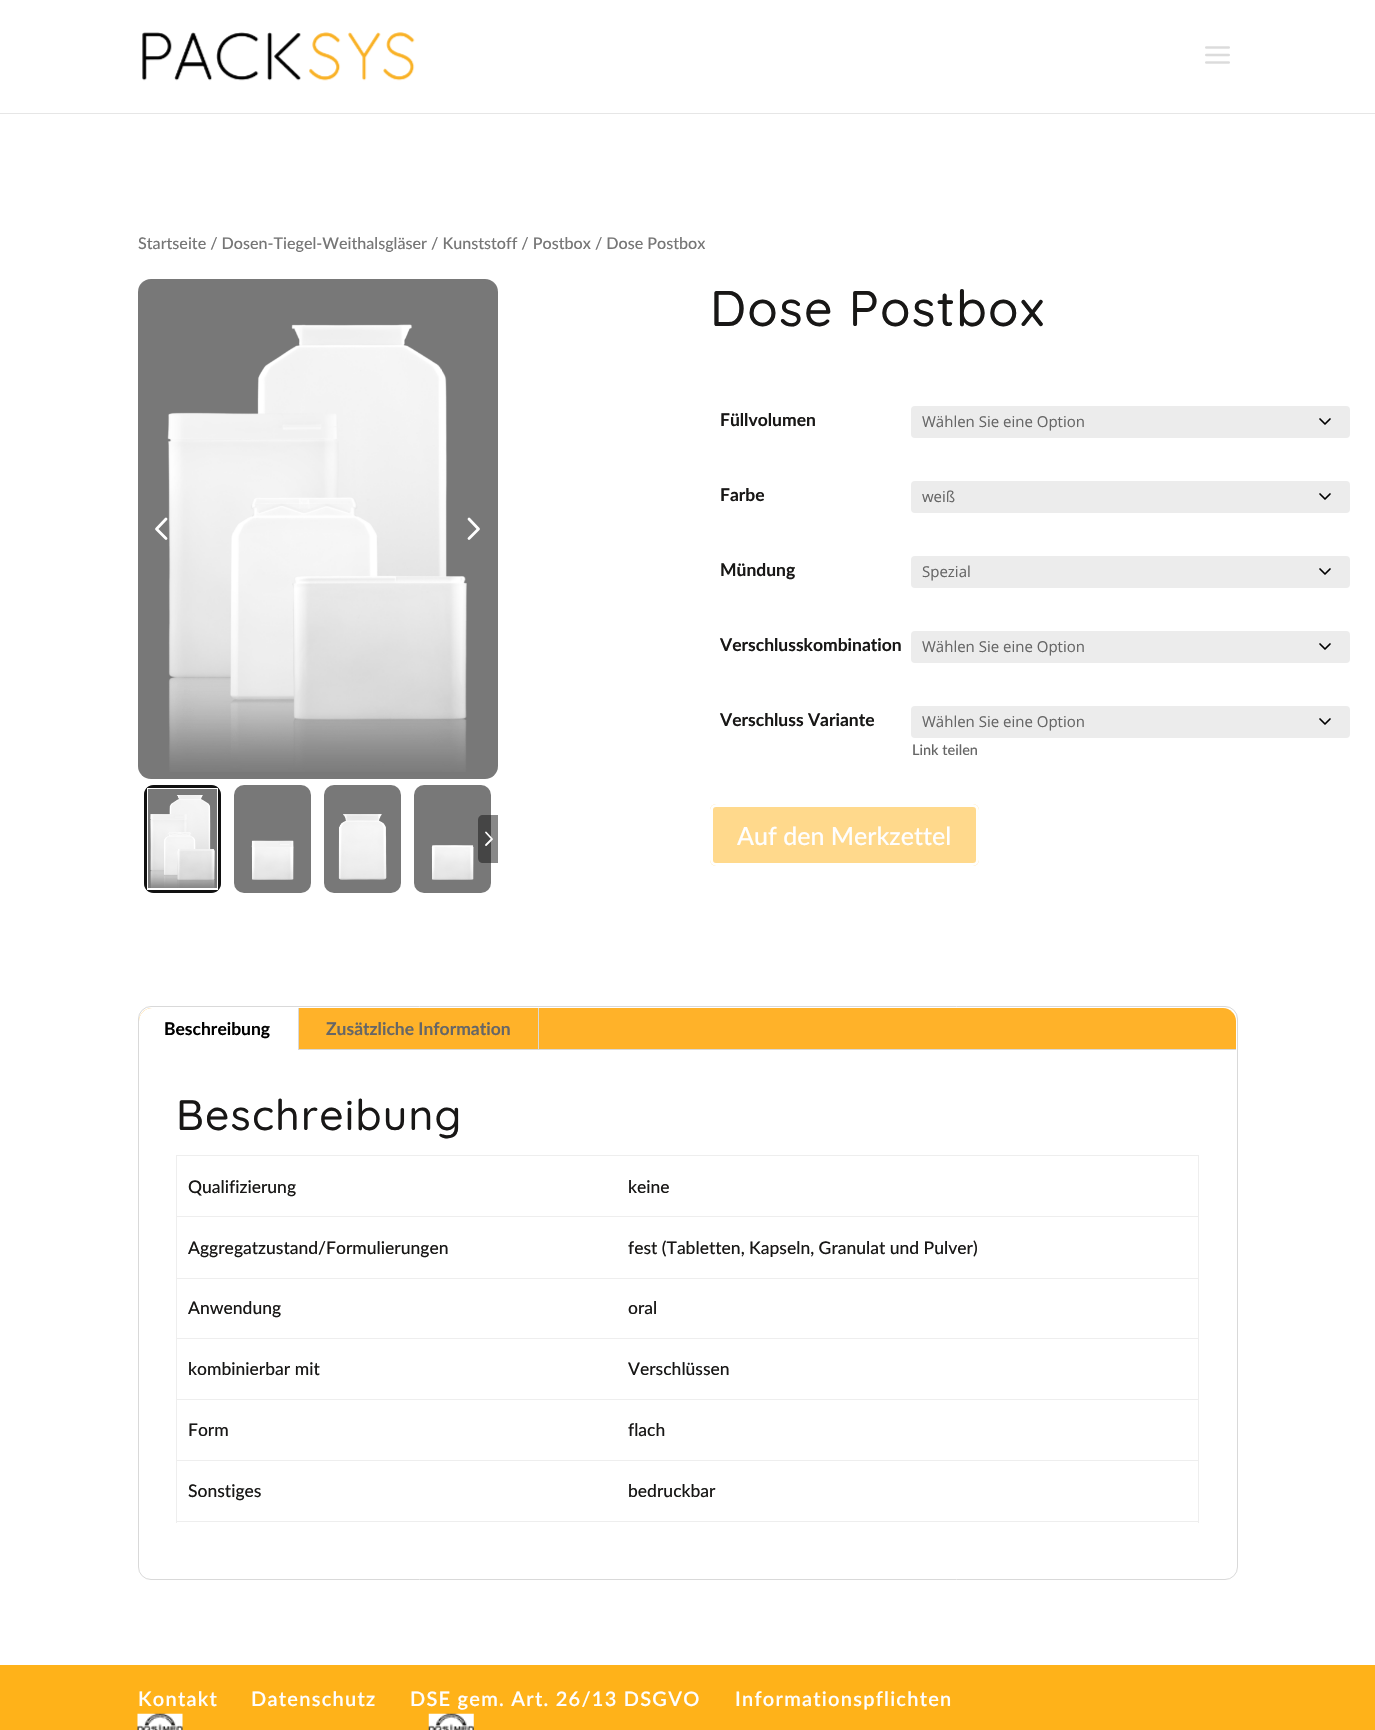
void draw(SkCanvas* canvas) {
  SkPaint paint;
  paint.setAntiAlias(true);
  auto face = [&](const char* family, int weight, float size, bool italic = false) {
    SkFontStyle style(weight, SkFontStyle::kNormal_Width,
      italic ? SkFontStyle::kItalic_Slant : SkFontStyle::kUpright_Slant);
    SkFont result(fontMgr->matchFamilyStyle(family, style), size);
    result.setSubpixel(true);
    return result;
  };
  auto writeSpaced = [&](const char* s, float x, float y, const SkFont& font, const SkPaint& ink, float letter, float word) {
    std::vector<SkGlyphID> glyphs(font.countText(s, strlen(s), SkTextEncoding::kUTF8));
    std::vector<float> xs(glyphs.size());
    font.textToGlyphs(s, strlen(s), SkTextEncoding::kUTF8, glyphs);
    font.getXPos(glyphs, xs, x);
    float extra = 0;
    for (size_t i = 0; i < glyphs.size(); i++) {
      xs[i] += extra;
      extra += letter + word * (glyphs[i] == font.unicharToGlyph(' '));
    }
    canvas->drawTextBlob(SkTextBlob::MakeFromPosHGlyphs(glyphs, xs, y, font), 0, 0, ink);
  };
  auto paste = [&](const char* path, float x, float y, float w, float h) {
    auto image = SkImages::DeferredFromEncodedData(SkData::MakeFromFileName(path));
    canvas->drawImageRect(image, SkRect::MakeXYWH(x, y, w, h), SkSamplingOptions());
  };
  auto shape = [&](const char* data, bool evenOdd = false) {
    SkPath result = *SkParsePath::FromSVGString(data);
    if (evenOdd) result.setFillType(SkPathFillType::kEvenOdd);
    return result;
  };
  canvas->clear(0xffffffff);
  paint.setColor(0xffe6e6e6);
  canvas->drawRect(SkRect::MakeXYWH(0, 113, 1375, 1), paint);
  paste("img/1.png", 142, 32, 273, 49);
  paste("img/2.png", 1205, 46, 25, 18);
  paint.setColor(0xff787878);
  canvas->drawRoundRect(SkRect::MakeXYWH(138, 279, 360, 500), 13, 13, paint);
  paste("img/3.png", 167, 324, 300, 448);
  paint.setStroke(true);
  paint.setStrokeWidth(2.8f);
  paint.setStrokeCap(SkPaint::kRound_Cap);
  paint.setStrokeJoin(SkPaint::kRound_Join);
  paint.setColor(0xffffffff);
  canvas->drawPath(shape("M166 519L156.5 529L166 538.5"), paint);
  canvas->drawPath(shape("M469 519L478.5 529L469 538.5"), paint);
  paint.setStroke(false);
  paint.setColor(0xff787878);
  canvas->drawRoundRect(SkRect::MakeXYWH(144, 785, 77, 108), 10, 10, paint);
  paste("img/4.png", 150, 795, 65, 93);
  paint.setColor(0xffffffff);
  canvas->drawPath(shape("M145 791C146 789 148 787 150 786H215C217 787 219 789 220 791V887C219 889 218 890 217 891H148L145 887ZM148 789V888H217V789Z", true), paint);
  paint.setColor(0xff111111);
  canvas->drawPath(shape("M154 785C148 785 144 789 144 795V883C144 889 148 893 154 893H211C217 893 221 889 221 883V795C221 789 217 785 211 785ZM147 788V890H218V788Z", true), paint);
  paint.setColor(0xff787878);
  canvas->drawRoundRect(SkRect::MakeXYWH(234, 785, 77, 108), 10, 10, paint);
  paste("img/5.png", 251, 840, 43, 40);
  canvas->drawRoundRect(SkRect::MakeXYWH(324, 785, 77, 108), 10, 10, paint);
  paste("img/6.png", 338, 814, 49, 66);
  canvas->drawRoundRect(SkRect::MakeXYWH(414, 785, 77, 108), 10, 10, paint);
  paste("img/7.png", 431, 845, 43, 35);
  paint.setColor(0x80111111);
  canvas->drawPath(shape("M483 815H498V863H483C480 863 478 861 478 858V820C478 817 480 815 483 815Z"), paint);
  paint.setStroke(true);
  paint.setStrokeWidth(1.8f);
  paint.setColor(0xffffffff);
  canvas->drawPath(shape("M486 832.5L492 839L486 845"), paint);
  paint.setStroke(false);
  paint.setColor(0xffececec);
  canvas->drawRoundRect(SkRect::MakeXYWH(911, 406, 439, 32), 4, 4, paint);
  paint.setStroke(true);
  paint.setStrokeWidth(1.7f);
  paint.setColor(0xff000000);
  canvas->drawPath(shape("M1320 419L1325 424L1330 419"), paint);
  paint.setStroke(false);
  paint.setColor(0xffececec);
  canvas->drawRoundRect(SkRect::MakeXYWH(911, 481, 439, 32), 4, 4, paint);
  paint.setStroke(true);
  paint.setColor(0xff000000);
  canvas->drawPath(shape("M1320 494L1325 499L1330 494"), paint);
  paint.setStroke(false);
  paint.setColor(0xffececec);
  canvas->drawRoundRect(SkRect::MakeXYWH(911, 556, 439, 32), 4, 4, paint);
  paint.setStroke(true);
  paint.setColor(0xff000000);
  canvas->drawPath(shape("M1320 569L1325 574L1330 569"), paint);
  paint.setStroke(false);
  paint.setColor(0xffececec);
  canvas->drawRoundRect(SkRect::MakeXYWH(911, 631, 439, 32), 4, 4, paint);
  paint.setStroke(true);
  paint.setColor(0xff000000);
  canvas->drawPath(shape("M1320 644L1325 649L1330 644"), paint);
  paint.setStroke(false);
  paint.setColor(0xffececec);
  canvas->drawRoundRect(SkRect::MakeXYWH(911, 706, 439, 32), 4, 4, paint);
  paint.setStroke(true);
  paint.setColor(0xff000000);
  canvas->drawPath(shape("M1320 719L1325 724L1330 719"), paint);
  paint.setStroke(false);
  paint.setColor(0xffffd98c);
  canvas->drawRoundRect(SkRect::MakeXYWH(710, 804, 269, 62), 6, 6, paint);
  paint.setStroke(true);
  paint.setStrokeWidth(3);
  paint.setStrokeCap(SkPaint::kButt_Cap);
  paint.setStrokeJoin(SkPaint::kMiter_Join);
  paint.setColor(0xfcffffff);
  canvas->drawRoundRect(SkRect::MakeXYWH(711.5f, 805.5f, 266, 59), 4.5f, 4.5f, paint);
  paint.setStrokeWidth(1);
  paint.setColor(0xffd9d9d9);
  canvas->drawRoundRect(SkRect::MakeXYWH(138.5f, 1006.5f, 1099, 573), 12.5f, 12.5f, paint);
  paint.setStroke(false);
  paint.setColor(0xffffb229);
  canvas->drawPath(shape("M152 1008H1223C1230 1008 1236 1014 1236 1021V1050H139V1021C139 1014 145 1008 152 1008Z"), paint);
  paint.setColor(0xffffffff);
  canvas->drawPath(shape("M152 1008H299V1050H139V1021C139 1014 145 1008 152 1008Z"), paint);
  {
    const struct { float x, y, w, h; SkColor color; } items[] = {
      {298, 1008, 1, 42, 0xffd9d9d9},
      {538, 1008, 1, 42, 0xffd9d9d9},
      {299, 1049, 937, 1, 0xffd9d9d9},
      {176, 1155, 1023, 1, 0xffeeeeee},
      {1198, 1155, 1, 368, 0xffeeeeee},
      {176, 1521, 1023, 1, 0xffeeeeee},
      {176, 1155, 1, 368, 0xffeeeeee},
      {176, 1216, 1023, 1, 0xffeeeeee},
      {176, 1278, 1023, 1, 0xffeeeeee},
      {176, 1338, 1023, 1, 0xffeeeeee},
      {176, 1399, 1023, 1, 0xffeeeeee},
      {176, 1460, 1023, 1, 0xffeeeeee},
      {0, 1665, 1375, 65, 0xffffb219},
    };
    for (auto [x, y, w, h, color] : items) {
      paint.setColor(color);
      canvas->drawRect(SkRect::MakeXYWH(x, y, w, h), paint);
    }
  }
  paste("img/8.png", 137, 1713, 46, 17);
  paste("img/9.png", 428, 1713, 46, 17);
  auto f0 = face("Lato", 500, 16.1f);
  paint.setColor(0xff767676);
  canvas->drawString("Startseite / Dosen-Tiegel-Weithalsgläser / Kunststoff / Postbox / Dose Postbox", 138, 249, f0, paint);
  auto f1 = face("Quicksand", 500, 50);
  paint.setColor(0xff181716);
  writeSpaced("Dose Postbox", 710, 326, f1, paint, 1.25f, 0);
  auto f2 = face("Lato", 700, 17.5f);
  canvas->drawString("Füllvolumen", 720, 426, f2, paint);
  auto f3 = face("Open Sans", 400, 15);
  paint.setColor(0xff666666);
  canvas->drawString("Wählen Sie eine Option", 922, 427, f3, paint);
  paint.setColor(0xff181716);
  canvas->drawString("Farbe", 720, 501, f2, paint);
  paint.setColor(0xff666666);
  canvas->drawString("weiß", 922, 502, f3, paint);
  paint.setColor(0xff181716);
  canvas->drawString("Mündung", 720, 576, f2, paint);
  paint.setColor(0xff666666);
  canvas->drawString("Spezial", 922, 577, f3, paint);
  paint.setColor(0xff181716);
  canvas->drawString("Verschlusskombination", 720, 651, f2, paint);
  paint.setColor(0xff666666);
  canvas->drawString("Wählen Sie eine Option", 922, 652, f3, paint);
  paint.setColor(0xff181716);
  canvas->drawString("Verschluss Variante", 720, 726, f2, paint);
  paint.setColor(0xff666666);
  canvas->drawString("Wählen Sie eine Option", 922, 727, f3, paint);
  auto f4 = face("Lato", 500, 14.5f);
  canvas->drawString("Link teilen", 912, 755, f4, paint);
  auto f5 = face("Lato", 500, 25);
  paint.setColor(0xfffefefe);
  canvas->drawString("Auf den Merkzettel", 737, 845, f5, paint);
  paint.setColor(0xff000000);
  canvas->drawString("Beschreibung", 164, 1035, f2, paint);
  paint.setColor(0xff666666);
  canvas->drawString("Zusätzliche Information", 326, 1035, f2, paint);
  auto f6 = face("Quicksand", 500, 42.5f);
  paint.setColor(0xff181716);
  writeSpaced("Beschreibung", 176, 1130, f6, paint, 1.25f, 0);
  auto f7 = face("Lato", 500, 17.5f);
  {
    const struct { const char* s; float x, y; } items[] = {
      {"Qualifizierung", 188, 1193},
      {"keine", 628, 1193},
      {"Aggregatzustand/Formulierungen", 188, 1254},
      {"fest (Tabletten, Kapseln, Granulat und Pulver)", 628, 1254},
      {"Anwendung", 188, 1314},
      {"oral", 628, 1314},
      {"kombinierbar mit", 188, 1375},
      {"Verschlüssen", 628, 1375},
      {"Form", 188, 1436},
      {"flach", 628, 1436},
      {"Sonstiges", 188, 1497},
      {"bedruckbar", 628, 1497},
    };
    for (auto [s, x, y] : items) {
      canvas->drawString(s, x, y, f7, paint);
    }
  }
  auto f8 = face("Lato", 600, 20);
  paint.setColor(0xfffefefe);
  {
    const struct { const char* s; float x, y; } items[] = {
      {"Kontakt", 138, 1706},
      {"Datenschutz", 251, 1706},
      {"DSE gem. Art. 26/13 DSGVO", 410, 1706},
      {"Informationspflichten", 735, 1706},
    };
    for (auto [s, x, y] : items) {
      writeSpaced(s, x, y, f8, paint, 1.25f, 0);
    }
  }
}
